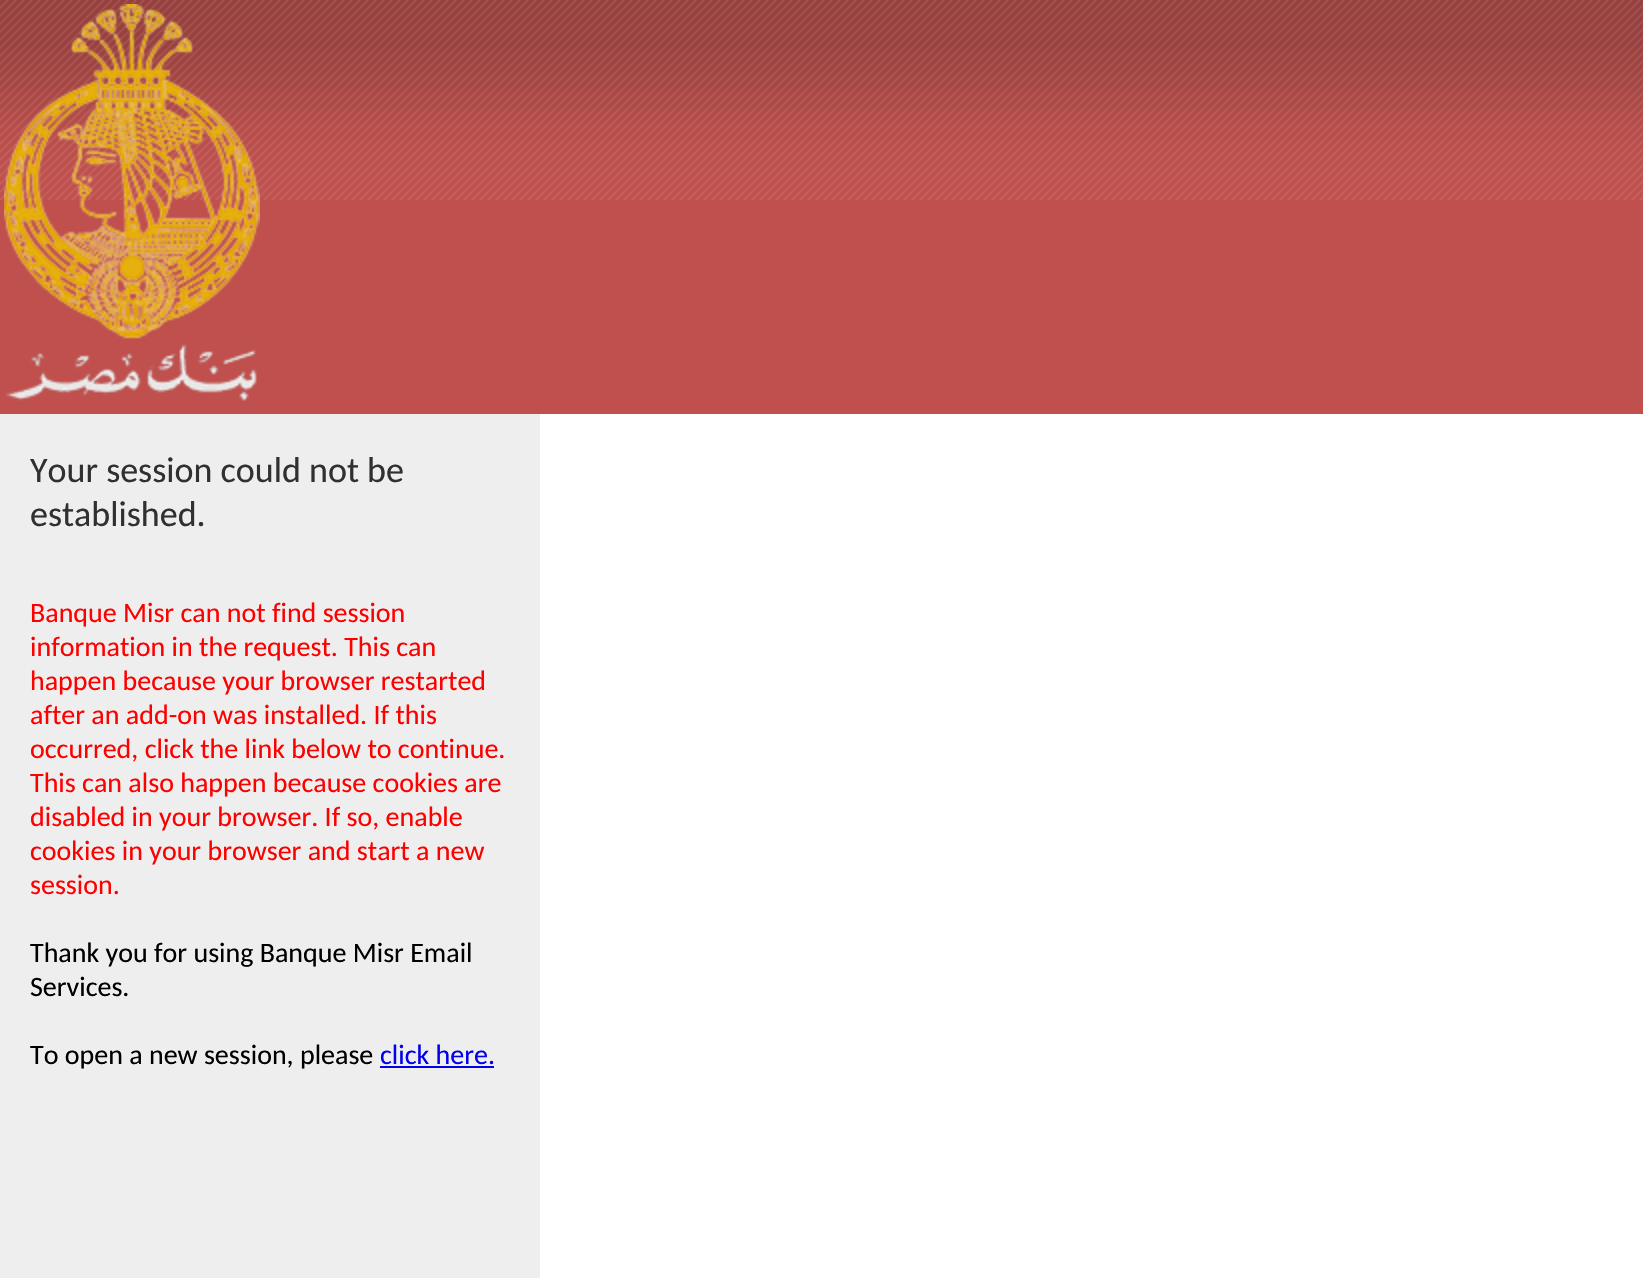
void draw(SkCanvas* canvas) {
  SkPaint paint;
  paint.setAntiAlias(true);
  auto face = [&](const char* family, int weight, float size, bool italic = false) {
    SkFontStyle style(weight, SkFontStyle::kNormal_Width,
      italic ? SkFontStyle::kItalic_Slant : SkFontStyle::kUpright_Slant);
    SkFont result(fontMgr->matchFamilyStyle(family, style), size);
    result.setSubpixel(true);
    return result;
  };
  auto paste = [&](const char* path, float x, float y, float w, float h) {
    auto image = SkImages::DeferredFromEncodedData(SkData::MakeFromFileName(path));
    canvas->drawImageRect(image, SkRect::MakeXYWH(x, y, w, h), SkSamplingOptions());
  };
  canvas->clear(0xffffffff);
  paint.setColor(0xffc0504d);
  canvas->drawRect(SkRect::MakeXYWH(0, 0, 1643, 414), paint);
  paste("img/1.png", 0, 0, 1643, 200);
  paste("img/2.png", 4, 4, 256, 397);
  paint.setColor(0xffeeeeee);
  canvas->drawRect(SkRect::MakeXYWH(0, 414, 540, 864), paint);
  paint.setColor(0xff0000ee);
  canvas->drawRect(SkRect::MakeXYWH(380, 1066, 114, 2), paint);
  auto f0 = face("Carlito", 400, 36);
  paint.setColor(0xff303030);
  canvas->drawString("Your session could not be", 30, 482, f0, paint);
  canvas->drawString("established.", 30, 526, f0, paint);
  auto f1 = face("Carlito", 400, 28);
  paint.setColor(0xffff0000);
  {
    const struct { const char* s; float x, y; } items[] = {
      {"Banque Misr can not find session", 30, 622},
      {"information in the request. This can", 30, 656},
      {"happen because your browser restarted", 30, 690},
      {"after an add-on was installed. If this", 30, 724},
      {"occurred, click the link below to continue.", 30, 758},
      {"This can also happen because cookies are", 30, 792},
      {"disabled in your browser. If so, enable", 30, 826},
      {"cookies in your browser and start a new", 30, 860},
      {"session.", 30, 894},
    };
    for (auto [s, x, y] : items) {
      canvas->drawString(s, x, y, f1, paint);
    }
  }
  paint.setColor(0xff000000);
  {
    const struct { const char* s; float x, y; } items[] = {
      {"Thank you for using Banque Misr Email", 30, 962},
      {"Services.", 30, 996},
      {"To open a new session, please", 30, 1064},
    };
    for (auto [s, x, y] : items) {
      canvas->drawString(s, x, y, f1, paint);
    }
  }
  paint.setColor(0xff0000ee);
  canvas->drawString("click here.", 380, 1064, f1, paint);
}
